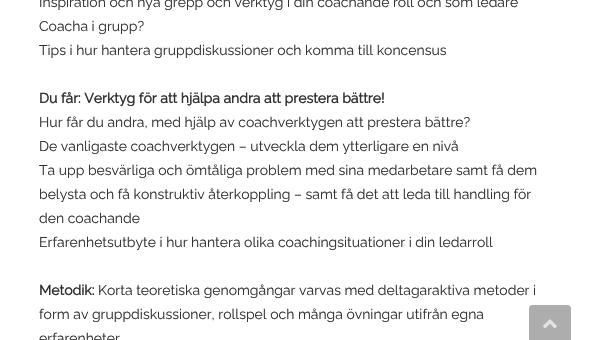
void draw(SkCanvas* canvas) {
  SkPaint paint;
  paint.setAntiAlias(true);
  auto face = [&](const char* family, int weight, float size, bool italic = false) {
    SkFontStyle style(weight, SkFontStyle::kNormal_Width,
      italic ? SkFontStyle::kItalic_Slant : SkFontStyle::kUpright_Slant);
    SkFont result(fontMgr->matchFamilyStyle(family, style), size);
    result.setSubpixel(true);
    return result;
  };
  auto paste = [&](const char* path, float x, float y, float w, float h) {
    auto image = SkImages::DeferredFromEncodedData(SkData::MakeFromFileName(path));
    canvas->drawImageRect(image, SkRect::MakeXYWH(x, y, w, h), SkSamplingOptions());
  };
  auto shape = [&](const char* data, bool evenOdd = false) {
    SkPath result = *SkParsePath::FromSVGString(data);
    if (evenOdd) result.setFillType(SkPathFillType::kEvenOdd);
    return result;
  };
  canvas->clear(0xffffffff);
  paint.setColor(0xffadadad);
  canvas->drawPath(shape("M532 305H568C569.5 305 571 306.5 571 308V340H529V308C529 306.5 530.5 305 532 305Z"), paint);
  paste("img/1.png", 543, 319, 14, 10);
  auto f0 = face("Raleway", 400, 14);
  paint.setColor(0xff313131);
  {
    const struct { const char* s; float x, y; } items[] = {
      {"Inspiration och nya grepp och verktyg i din coachande roll och som ledare", 39, 7},
      {"Coacha i grupp?", 39, 31},
      {"Tips i hur hantera gruppdiskussioner och komma till koncensus", 39, 55},
    };
    for (auto [s, x, y] : items) {
      canvas->drawString(s, x, y, f0, paint);
    }
  }
  auto f1 = face("Raleway", 700, 14);
  canvas->drawString("Du får: Verktyg för att hjälpa andra att prestera bättre!", 39, 103, f1, paint);
  {
    const struct { const char* s; float x, y; } items[] = {
      {"Hur får du andra, med hjälp av coachverktygen att prestera bättre?", 39, 127},
      {"De vanligaste coachverktygen – utveckla dem ytterligare en nivå", 39, 151},
      {"Ta upp besvärliga och ömtåliga problem med sina medarbetare samt få dem", 39, 175},
      {"belysta och få konstruktiv återkoppling – samt få det att leda till handling för", 39, 199},
      {"den coachande", 39, 223},
      {"Erfarenhetsutbyte i hur hantera olika coachingsituationer i din ledarroll", 39, 247},
    };
    for (auto [s, x, y] : items) {
      canvas->drawString(s, x, y, f0, paint);
    }
  }
  canvas->drawString("Metodik:", 39, 295, f1, paint);
  {
    const struct { const char* s; float x, y; } items[] = {
      {"Korta teoretiska genomgångar varvas med deltagaraktiva metoder i", 98, 295},
      {"form av gruppdiskussioner, rollspel och många övningar utifrån egna", 39, 319},
      {"erfarenheter", 39, 343},
    };
    for (auto [s, x, y] : items) {
      canvas->drawString(s, x, y, f0, paint);
    }
  }
}
